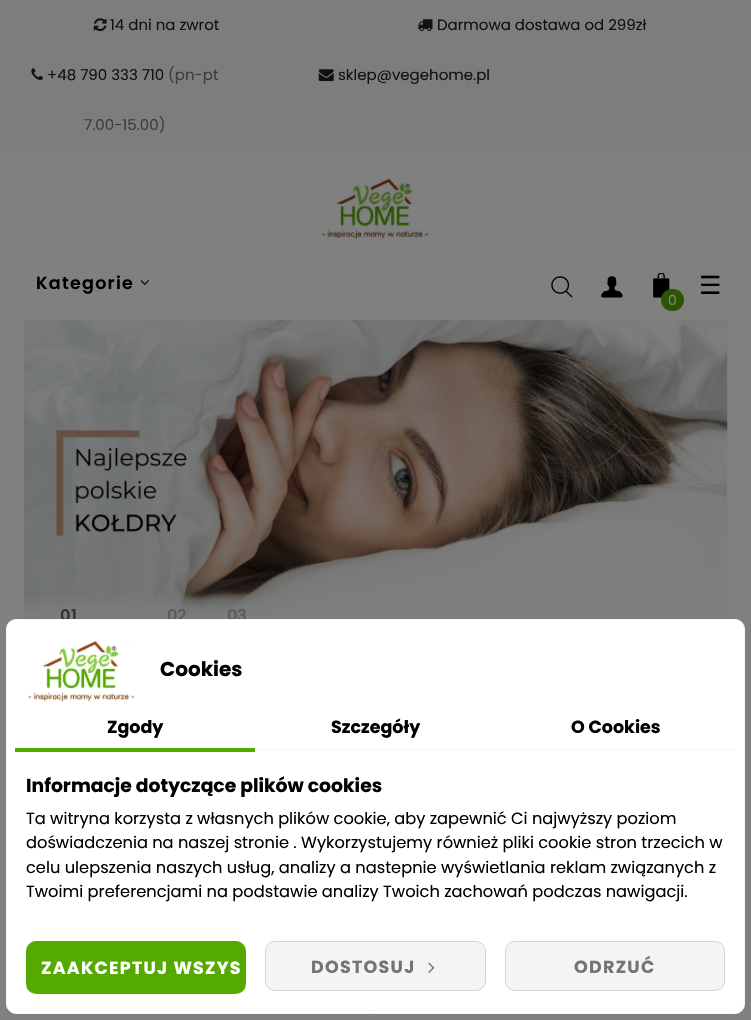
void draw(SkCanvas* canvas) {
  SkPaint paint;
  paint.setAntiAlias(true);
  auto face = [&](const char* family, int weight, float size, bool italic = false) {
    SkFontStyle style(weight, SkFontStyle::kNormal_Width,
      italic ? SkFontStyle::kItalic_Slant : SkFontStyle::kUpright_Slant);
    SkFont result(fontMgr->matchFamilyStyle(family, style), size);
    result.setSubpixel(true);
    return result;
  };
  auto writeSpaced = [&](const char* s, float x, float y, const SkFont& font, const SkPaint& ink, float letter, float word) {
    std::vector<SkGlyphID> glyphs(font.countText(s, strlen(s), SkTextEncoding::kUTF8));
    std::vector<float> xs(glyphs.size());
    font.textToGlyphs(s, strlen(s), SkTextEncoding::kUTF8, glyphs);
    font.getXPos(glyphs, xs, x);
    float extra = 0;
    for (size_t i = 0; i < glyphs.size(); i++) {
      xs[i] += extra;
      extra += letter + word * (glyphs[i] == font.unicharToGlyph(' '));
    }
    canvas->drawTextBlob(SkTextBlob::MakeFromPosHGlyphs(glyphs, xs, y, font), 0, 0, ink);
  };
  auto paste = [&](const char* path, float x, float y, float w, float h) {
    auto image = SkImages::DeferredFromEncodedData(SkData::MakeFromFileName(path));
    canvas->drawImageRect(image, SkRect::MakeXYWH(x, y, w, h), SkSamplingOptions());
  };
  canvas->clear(0xff808080);
  paint.setColor(0xff7d7d7d);
  canvas->drawRect(SkRect::MakeXYWH(0, 0, 751, 150), paint);
  paint.setColor(0xff777777);
  canvas->drawRect(SkRect::MakeXYWH(0, 150, 751, 1), paint);
  paste("img/1.png", 93, 18, 14, 14);
  paste("img/2.png", 418, 19, 15, 13);
  paste("img/3.png", 31, 68, 12, 12);
  paste("img/4.png", 318, 69, 16, 13);
  paste("img/5.png", 321, 178, 108, 61);
  paste("img/6.png", 140, 280, 9, 5);
  paste("img/7.png", 551, 276, 22, 22);
  paste("img/8.png", 601, 276, 22, 22);
  paste("img/9.png", 653, 273, 17, 25);
  paint.setColor(0xff2b5500);
  canvas->drawRoundRect(SkRect::MakeXYWH(661, 289, 23, 22), 11, 11, paint);
  paste("img/10.png", 24, 320, 704, 299);
  auto f0 = face("Poppins", 400, 15);
  paint.setColor(0xff111111);
  {
    const struct { const char* s; float x, y; } items[] = {
      {"14 dni na zwrot", 110, 30},
      {"Darmowa dostawa od 299zł", 437, 30},
      {"+48 790 333 710", 47, 80},
    };
    for (auto [s, x, y] : items) {
      canvas->drawString(s, x, y, f0, paint);
    }
  }
  paint.setColor(0xff3c3c3c);
  canvas->drawString("(pn-pt", 168, 80, f0, paint);
  canvas->drawString("7.00-15.00)", 84, 130, f0, paint);
  paint.setColor(0xff111111);
  canvas->drawString("sklep@vegehome.pl", 338, 80, f0, paint);
  auto f1 = face("Poppins", 600, 17.5f);
  paint.setColor(0xff000000);
  writeSpaced("Kategorie", 36, 289, f1, paint, 1.25f, 0);
  auto f2 = face("DejaVu Sans", 400, 25);
  canvas->drawString("☰", 699, 294, f2, paint);
  auto f3 = face("Poppins", 400, 14);
  paint.setColor(0xff808080);
  canvas->drawString("0", 668, 305, f3, paint);
  auto f4 = face("Poppins", 600, 16.25f);
  paint.setColor(0xff313232);
  canvas->drawString("0", 60, 621, f4, paint);
  canvas->drawString("1", 71, 621, f4, paint);
  paint.setColor(0xff5a5b5a);
  {
    const struct { const char* s; float x, y; } items[] = {
      {"0", 167, 621},
      {"2", 177, 621},
      {"0", 227, 621},
      {"3", 237, 621},
    };
    for (auto [s, x, y] : items) {
      canvas->drawString(s, x, y, f4, paint);
    }
  }
  paint.setColor(0xffffffff);
  canvas->drawRoundRect(SkRect::MakeXYWH(6.5f, 619.5f, 738, 394), 9.5f, 9.5f, paint);
  paint.setStroke(true);
  paint.setStrokeWidth(1);
  paint.setColor(0xfff6f6f6);
  canvas->drawRoundRect(SkRect::MakeXYWH(6.5f, 619.5f, 738, 394), 9.5f, 9.5f, paint);
  paste("img/11.png", 28, 640, 108, 62);
  auto f5 = face("Poppins", 700, 20);
  paint.setStroke(false);
  paint.setColor(0xff000000);
  canvas->drawString("Cookies", 160, 676, f5, paint);
  paint.setColor(0xfff6f6f6);
  canvas->drawRect(SkRect::MakeXYWH(255, 749, 481, 1), paint);
  paint.setColor(0xff55aa00);
  canvas->drawRect(SkRect::MakeXYWH(15, 748, 240, 4), paint);
  auto f6 = face("Poppins", 700, 17.5f);
  paint.setColor(0xff000000);
  {
    const struct { const char* s; float x, y; } items[] = {
      {"Zgody", 107, 733},
      {"Szczegóły", 331, 733},
      {"O Cookies", 571, 733},
    };
    for (auto [s, x, y] : items) {
      canvas->drawString(s, x, y, f6, paint);
    }
  }
  auto f7 = face("Poppins", 700, 18.75f);
  canvas->drawString("Informacje dotyczące plików cookies", 26, 792, f7, paint);
  auto f8 = face("Poppins", 400, 16.25f);
  {
    const struct { const char* s; float x, y; } items[] = {
      {"Ta witryna korzysta z własnych plików cookie, aby zapewnić Ci najwyższy poziom", 26, 824},
      {"doświadczenia na naszej stronie . Wykorzystujemy również pliki cookie stron trzecich w", 26, 848},
      {"celu ulepszenia naszych usług, analizy a nastepnie wyświetlania reklam związanych z", 26, 873},
      {"Twoimi preferencjami na podstawie analizy Twoich zachowań podczas nawigacji.", 26, 897},
    };
    for (auto [s, x, y] : items) {
      canvas->drawString(s, x, y, f8, paint);
    }
  }
  paint.setColor(0xff55aa00);
  canvas->drawRoundRect(SkRect::MakeXYWH(27.5f, 942.5f, 217, 50), 8.5f, 8.5f, paint);
  paint.setStroke(true);
  paint.setStrokeWidth(3);
  canvas->drawRoundRect(SkRect::MakeXYWH(27.5f, 942.5f, 217, 50), 8.5f, 8.5f, paint);
  paint.setStroke(false);
  paint.setColor(0xffffffff);
  writeSpaced("ZAAKCEPTUJ WSZYS", 41, 974, f6, paint, 1.25f, 0);
  paint.setColor(0xfff4f4f4);
  canvas->drawRoundRect(SkRect::MakeXYWH(265.5f, 941.5f, 220, 49), 9.5f, 9.5f, paint);
  paint.setStroke(true);
  paint.setStrokeWidth(1);
  paint.setColor(0xffd4d4d4);
  canvas->drawRoundRect(SkRect::MakeXYWH(265.5f, 941.5f, 220, 49), 9.5f, 9.5f, paint);
  paint.setStroke(false);
  paint.setColor(0xff747474);
  writeSpaced("DOSTOSUJ", 311, 973, f6, paint, 1.25f, 0);
  paste("img/12.png", 428, 962, 7, 11);
  paint.setColor(0xfff4f4f4);
  canvas->drawRoundRect(SkRect::MakeXYWH(505.5f, 941.5f, 219, 49), 9.5f, 9.5f, paint);
  paint.setStroke(true);
  paint.setColor(0xffd4d4d4);
  canvas->drawRoundRect(SkRect::MakeXYWH(505.5f, 941.5f, 219, 49), 9.5f, 9.5f, paint);
  paint.setStroke(false);
  paint.setColor(0xff747474);
  writeSpaced("ODRZUĆ", 574, 973, f6, paint, 1.25f, 0);
}
